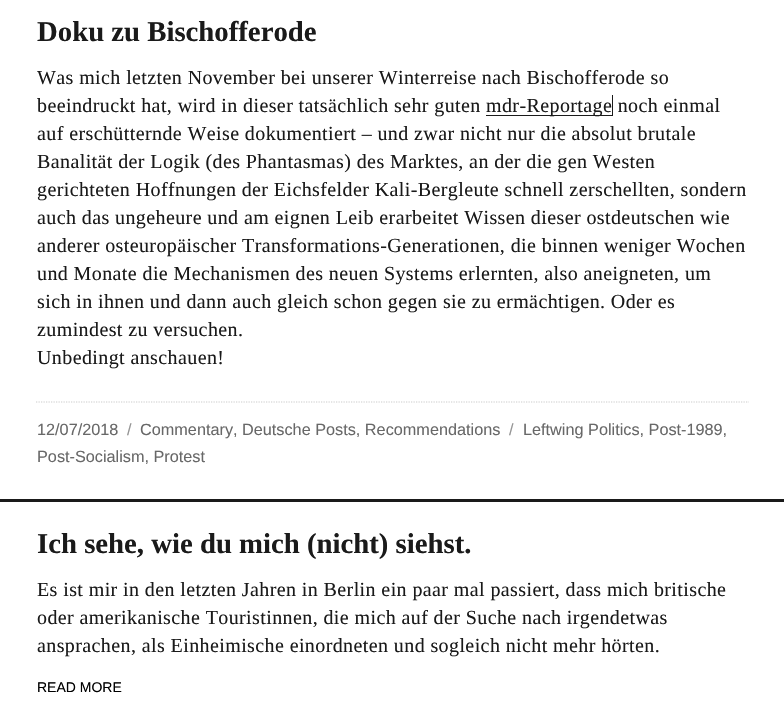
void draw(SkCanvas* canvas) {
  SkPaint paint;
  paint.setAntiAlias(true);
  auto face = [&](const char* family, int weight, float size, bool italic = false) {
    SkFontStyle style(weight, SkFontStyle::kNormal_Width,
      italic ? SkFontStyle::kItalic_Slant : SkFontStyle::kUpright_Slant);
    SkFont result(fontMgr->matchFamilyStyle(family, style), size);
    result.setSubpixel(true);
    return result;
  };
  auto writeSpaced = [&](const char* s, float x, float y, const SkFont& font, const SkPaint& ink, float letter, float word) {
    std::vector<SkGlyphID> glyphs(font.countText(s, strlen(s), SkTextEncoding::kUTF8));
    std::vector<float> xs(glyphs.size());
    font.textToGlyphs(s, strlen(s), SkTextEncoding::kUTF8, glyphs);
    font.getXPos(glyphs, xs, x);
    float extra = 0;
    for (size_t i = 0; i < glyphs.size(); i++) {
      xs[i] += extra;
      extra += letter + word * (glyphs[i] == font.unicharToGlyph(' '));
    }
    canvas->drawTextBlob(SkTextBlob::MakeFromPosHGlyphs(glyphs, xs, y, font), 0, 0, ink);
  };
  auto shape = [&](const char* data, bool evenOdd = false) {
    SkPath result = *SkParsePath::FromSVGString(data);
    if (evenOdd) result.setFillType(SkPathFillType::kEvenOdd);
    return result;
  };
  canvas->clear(0xffffffff);
  paint.setColor(0xff1a1a1a);
  canvas->drawPath(shape("M486 95V116H613V95H612V115H486Z"), paint);
  paint.setStroke(true);
  paint.setStrokeWidth(1.2f);
  paint.setColor(0xffcccccc);
  paint.setPathEffect(SkDashPathEffect::Make({{1.25f, 1.25f}}, 0));
  canvas->drawPath(shape("M36 402H749"), paint);
  paint.setPathEffect(nullptr);
  paint.setStroke(false);
  paint.setColor(0xff1a1a1a);
  canvas->drawRect(SkRect::MakeXYWH(0, 499, 784, 3), paint);
  auto f0 = face("Tinos", 700, 28.75f);
  canvas->drawString("Doku zu Bischofferode", 37, 41, f0, paint);
  auto f1 = face("Tinos", 400, 20);
  {
    const struct { const char* s; float x, y; } items[] = {
      {"Was mich letzten November bei unserer Winterreise nach Bischofferode so", 37, 84},
      {"beeindruckt hat, wird in dieser tatsächlich sehr guten", 37, 112},
      {"mdr-Reportage noch einmal", 486, 112},
      {"auf erschütternde Weise dokumentiert – und zwar nicht nur die absolut brutale", 37, 140},
      {"Banalität der Logik (des Phantasmas) des Marktes, an der die gen Westen", 37, 168},
      {"gerichteten Hoffnungen der Eichsfelder Kali-Bergleute schnell zerschellten, sondern", 37, 196},
      {"auch das ungeheure und am eignen Leib erarbeitet Wissen dieser ostdeutschen wie", 37, 224},
      {"anderer osteuropäischer Transformations-Generationen, die binnen weniger Wochen", 37, 252},
      {"und Monate die Mechanismen des neuen Systems erlernten, also aneigneten, um", 37, 280},
      {"sich in ihnen und dann auch gleich schon gegen sie zu ermächtigen. Oder es", 37, 308},
      {"zumindest zu versuchen.", 37, 336},
      {"Unbedingt anschauen!", 37, 364},
    };
    for (auto [s, x, y] : items) {
      writeSpaced(s, x, y, f1, paint, 0.4f, 0);
    }
  }
  auto f2 = face("Arimo", 400, 16.25f);
  paint.setColor(0xff686868);
  canvas->drawString("12/07/2018", 37, 435, f2, paint);
  paint.setColor(0xff959595);
  canvas->drawString("/", 127, 435, f2, paint);
  paint.setColor(0xff686868);
  canvas->drawString("Commentary, Deutsche Posts, Recommendations", 140, 435, f2, paint);
  paint.setColor(0xff959595);
  canvas->drawString("/", 509, 435, f2, paint);
  paint.setColor(0xff686868);
  canvas->drawString("Leftwing Politics, Post-1989,", 523, 435, f2, paint);
  canvas->drawString("Post-Socialism, Protest", 37, 462, f2, paint);
  paint.setColor(0xff1a1a1a);
  canvas->drawString("Ich sehe, wie du mich (nicht) siehst.", 37, 553, f0, paint);
  {
    const struct { const char* s; float x, y; } items[] = {
      {"Es ist mir in den letzten Jahren in Berlin ein paar mal passiert, dass mich britische", 37, 596},
      {"oder amerikanische Touristinnen, die mich auf der Suche nach irgendetwas", 37, 624},
      {"ansprachen, als Einheimische einordneten und sogleich nicht mehr hörten.", 37, 652},
    };
    for (auto [s, x, y] : items) {
      writeSpaced(s, x, y, f1, paint, 0.4f, 0);
    }
  }
  auto f3 = face("Arimo", 400, 14);
  paint.setColor(0xff000000);
  canvas->drawString("READ MORE", 37, 692, f3, paint);
}
